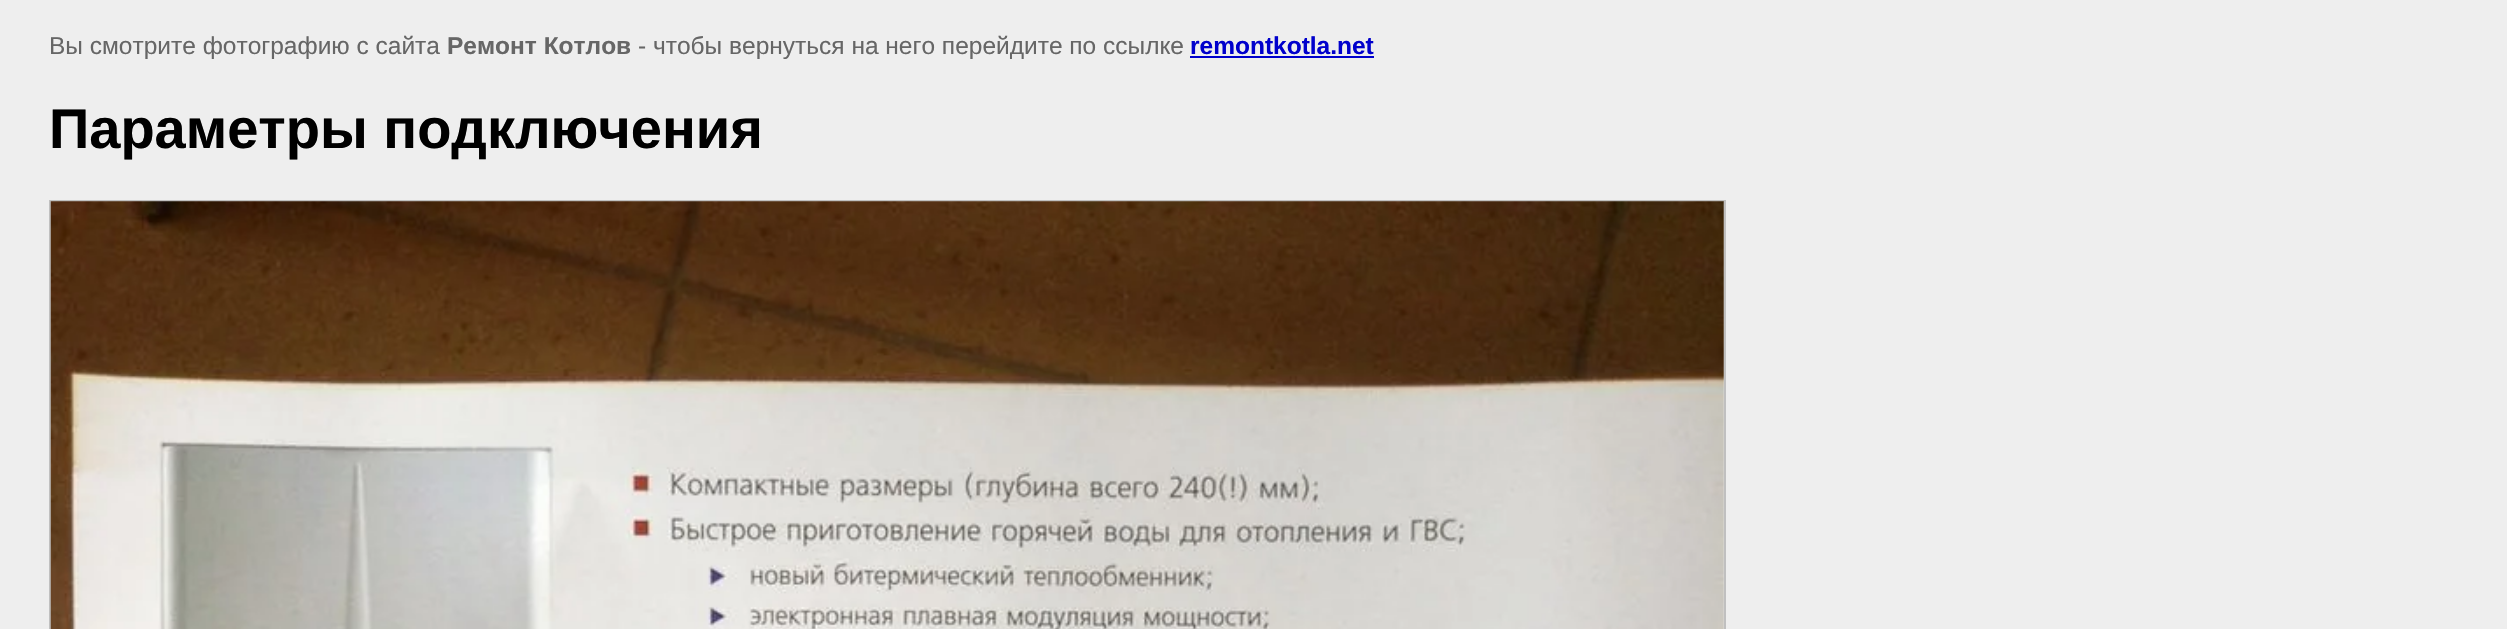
void draw(SkCanvas* canvas) {
  SkPaint paint;
  paint.setAntiAlias(true);
  auto face = [&](const char* family, int weight, float size, bool italic = false) {
    SkFontStyle style(weight, SkFontStyle::kNormal_Width,
      italic ? SkFontStyle::kItalic_Slant : SkFontStyle::kUpright_Slant);
    SkFont result(fontMgr->matchFamilyStyle(family, style), size);
    result.setSubpixel(true);
    return result;
  };
  auto paste = [&](const char* path, float x, float y, float w, float h) {
    auto image = SkImages::DeferredFromEncodedData(SkData::MakeFromFileName(path));
    canvas->drawImageRect(image, SkRect::MakeXYWH(x, y, w, h), SkSamplingOptions());
  };
  canvas->clear(0xffeeeeee);
  paint.setColor(0xff0000cc);
  canvas->drawRect(SkRect::MakeXYWH(1190, 56, 184, 2), paint);
  paint.setStroke(true);
  paint.setStrokeWidth(2);
  paint.setColor(0xffc0c0c0);
  canvas->drawRect(SkRect::MakeXYWH(50, 201, 1675, 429), paint);
  paste("img/1.png", 50, 201, 1674, 428);
  auto f0 = face("Liberation Sans", 400, 24.5f);
  paint.setStroke(false);
  paint.setColor(0xff666666);
  canvas->drawString("Вы смотрите фотографию с сайта", 49, 54, f0, paint);
  auto f1 = face("Liberation Sans", 700, 24.5f);
  canvas->drawString("Ремонт Котлов", 447, 54, f1, paint);
  canvas->drawString("- чтобы вернуться на него перейдите по ссылке", 638, 54, f0, paint);
  paint.setColor(0xff0000cc);
  canvas->drawString("remontkotla.net", 1190, 54, f1, paint);
  auto f2 = face("Liberation Sans", 700, 56);
  paint.setColor(0xff000000);
  canvas->drawString("Параметры подключения", 49, 148, f2, paint);
}
